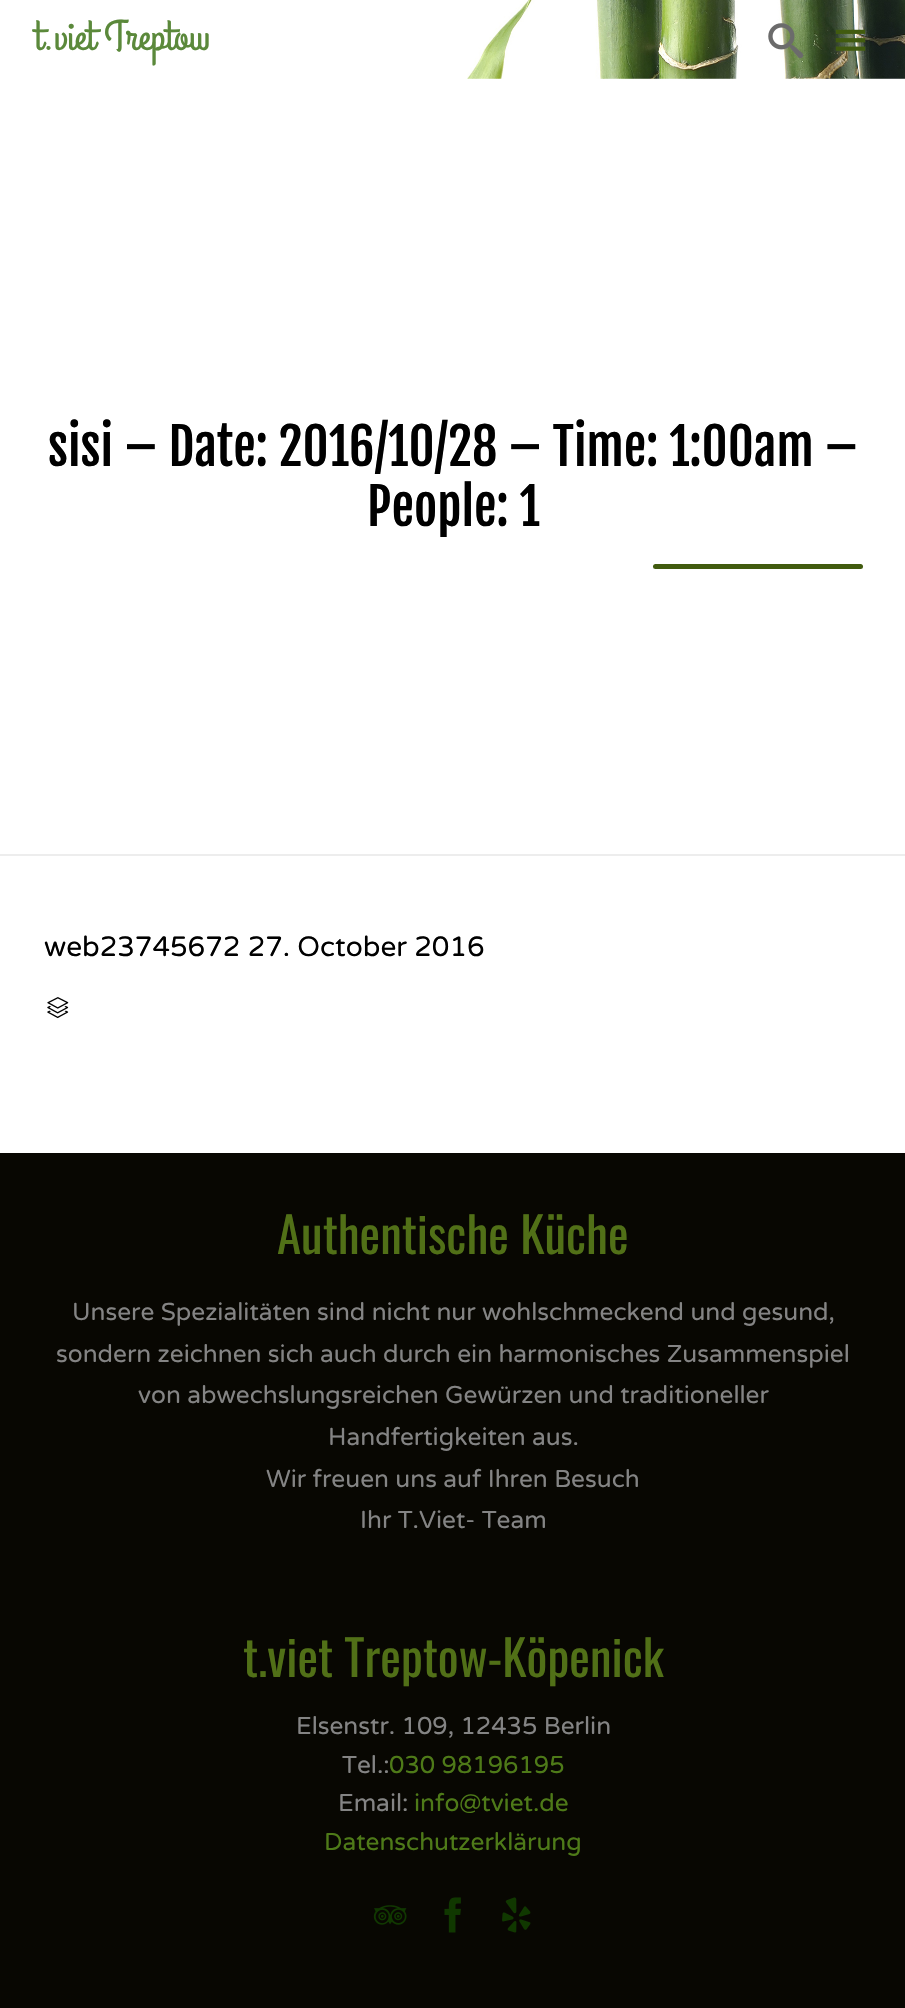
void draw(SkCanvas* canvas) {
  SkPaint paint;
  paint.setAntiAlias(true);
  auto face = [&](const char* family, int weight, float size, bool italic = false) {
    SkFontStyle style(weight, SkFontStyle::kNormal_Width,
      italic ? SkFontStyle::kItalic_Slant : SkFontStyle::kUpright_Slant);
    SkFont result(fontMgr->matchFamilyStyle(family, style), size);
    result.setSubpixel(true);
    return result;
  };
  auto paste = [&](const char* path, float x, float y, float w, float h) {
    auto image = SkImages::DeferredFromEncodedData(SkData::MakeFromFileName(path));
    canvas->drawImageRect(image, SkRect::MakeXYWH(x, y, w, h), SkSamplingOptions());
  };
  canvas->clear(0xffffffff);
  paste("img/1.png", 467, 0, 438, 79);
  paste("img/2.png", 768, 23, 36, 36);
  paste("img/3.png", 835, 29, 31, 22);
  paint.setColor(0xffededed);
  canvas->drawRect(SkRect::MakeXYWH(0, 854, 905, 2), paint);
  paint.setColor(0xff415b0f);
  canvas->drawRoundRect(SkRect::MakeXYWH(653, 564, 210, 5), 2.5f, 2.5f, paint);
  paste("img/4.png", 47, 997, 22, 22);
  paint.setColor(0xff080702);
  canvas->drawRect(SkRect::MakeXYWH(0, 1153, 905, 855), paint);
  paste("img/5.png", 373, 1905, 34, 20);
  paste("img/6.png", 444, 1897, 17, 36);
  paste("img/7.png", 502, 1897, 29, 36);
  auto f0 = face("Grand Hotel", 400, 42);
  paint.setColor(0xff5b893b);
  canvas->drawString("t.viet Treptow", 35, 49, f0, paint);
  auto f1 = face("Fjalla One", 400, 50.4f);
  paint.setColor(0xff000000);
  canvas->drawString("sisi – Date: 2016/10/28 – Time: 1:00am –", 48, 466, f1, paint);
  canvas->drawString("People: 1", 367, 526, f1, paint);
  auto f2 = face("Varela Round", 400, 28);
  canvas->drawString("web23745672 27. October 2016", 44, 956, f2, paint);
  auto f3 = face("Oswald", 400, 49);
  paint.setColor(0xff517017);
  canvas->drawString("Authentische Küche", 277, 1254, f3, paint);
  auto f4 = face("Varela Round", 400, 24.5f);
  paint.setColor(0xff848484);
  {
    const struct { const char* s; float x, y; } items[] = {
      {"Unsere Spezialitäten sind nicht nur wohlschmeckend und gesund,", 72, 1320},
      {"sondern zeichnen sich auch durch ein harmonisches Zusammenspiel", 56, 1362},
      {"von abwechslungsreichen Gewürzen und traditioneller", 138, 1403},
      {"Handfertigkeiten aus.", 328, 1445},
      {"Wir freuen uns auf Ihren Besuch", 266, 1487},
      {"Ihr T.Viet- Team", 360, 1528},
    };
    for (auto [s, x, y] : items) {
      canvas->drawString(s, x, y, f4, paint);
    }
  }
  paint.setColor(0xff517017);
  canvas->drawString("t.viet Treptow-Köpenick", 243, 1677, f3, paint);
  paint.setColor(0xff848484);
  canvas->drawString("Elsenstr. 109, 12435 Berlin", 296, 1734, f4, paint);
  canvas->drawString("Tel.:", 342, 1773, f4, paint);
  paint.setColor(0xff4e7a18);
  canvas->drawString("030 98196195", 389, 1773, f4, paint);
  paint.setColor(0xff848484);
  canvas->drawString("Email:", 338, 1811, f4, paint);
  paint.setColor(0xff4e7a18);
  canvas->drawString("info@tviet.de", 414, 1811, f4, paint);
  canvas->drawString("Datenschutzerklärung", 324, 1850, f4, paint);
}
